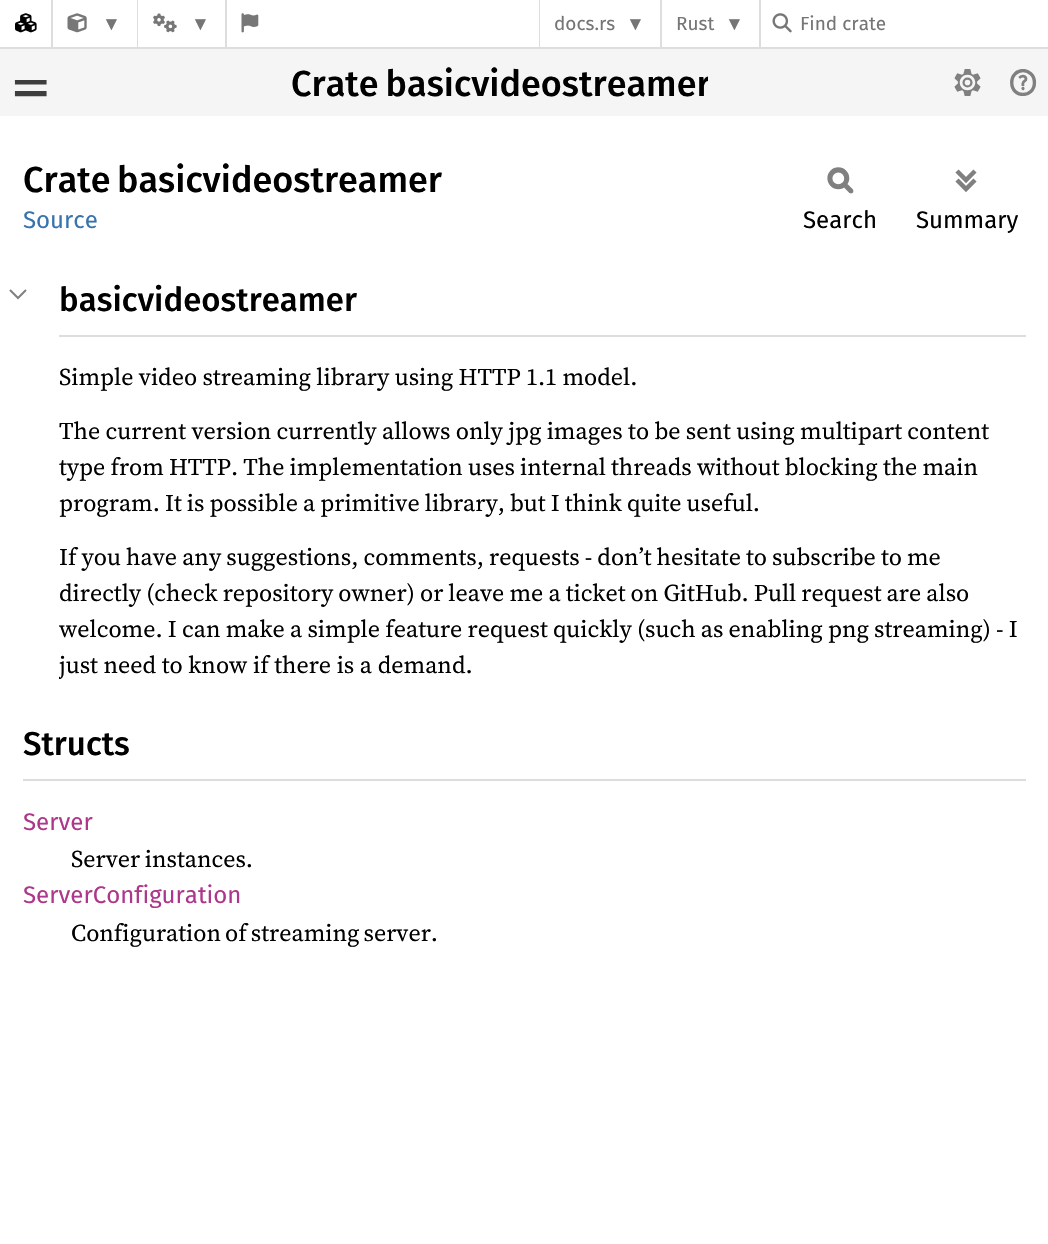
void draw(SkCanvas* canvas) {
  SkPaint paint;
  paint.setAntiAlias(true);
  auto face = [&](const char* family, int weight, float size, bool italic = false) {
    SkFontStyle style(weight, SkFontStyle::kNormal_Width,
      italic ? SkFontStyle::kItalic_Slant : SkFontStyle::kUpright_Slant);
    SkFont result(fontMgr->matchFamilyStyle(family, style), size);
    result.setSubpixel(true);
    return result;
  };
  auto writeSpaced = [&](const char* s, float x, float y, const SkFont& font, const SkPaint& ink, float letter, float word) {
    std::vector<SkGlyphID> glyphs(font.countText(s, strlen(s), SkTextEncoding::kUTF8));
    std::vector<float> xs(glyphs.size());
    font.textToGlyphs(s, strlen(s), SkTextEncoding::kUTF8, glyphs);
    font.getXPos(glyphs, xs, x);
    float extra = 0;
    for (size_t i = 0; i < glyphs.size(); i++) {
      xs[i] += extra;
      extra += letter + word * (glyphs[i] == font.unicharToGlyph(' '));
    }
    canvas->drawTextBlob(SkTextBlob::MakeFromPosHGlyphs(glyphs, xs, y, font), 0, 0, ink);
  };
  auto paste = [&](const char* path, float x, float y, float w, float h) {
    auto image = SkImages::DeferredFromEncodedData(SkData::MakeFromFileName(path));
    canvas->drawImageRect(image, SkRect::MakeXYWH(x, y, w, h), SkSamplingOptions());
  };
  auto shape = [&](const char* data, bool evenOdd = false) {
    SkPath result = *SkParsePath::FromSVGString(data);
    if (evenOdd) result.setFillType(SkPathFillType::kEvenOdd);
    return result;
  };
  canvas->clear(0xffffffff);
  paint.setColor(0xffdddddd);
  canvas->drawRect(SkRect::MakeXYWH(0, 47, 1048, 2), paint);
  paste("img/1.png", 15, 13, 22, 20);
  canvas->drawRect(SkRect::MakeXYWH(51, 0, 2, 47), paint);
  paste("img/2.png", 67, 13, 20, 20);
  canvas->drawRect(SkRect::MakeXYWH(137, 0, 1, 47), paint);
  paste("img/3.png", 153, 13, 24, 20);
  canvas->drawRect(SkRect::MakeXYWH(225, 0, 2, 47), paint);
  paste("img/4.png", 241, 13, 18, 20);
  {
    const struct { float x, y, w, h; SkColor color; } items[] = {
      {539, 0, 1, 47, 0xffdddddd},
      {660, 0, 2, 47, 0xffdddddd},
      {759, 0, 2, 47, 0xffdddddd},
    };
    for (auto [x, y, w, h, color] : items) {
      paint.setColor(color);
      canvas->drawRect(SkRect::MakeXYWH(x, y, w, h), paint);
    }
  }
  paste("img/5.png", 772, 13, 20, 20);
  paint.setColor(0xfff5f5f5);
  canvas->drawRect(SkRect::MakeXYWH(0, 49, 1048, 67), paint);
  paste("img/6.png", 14, 80, 33, 17);
  paste("img/7.png", 954, 69, 27, 27);
  paste("img/8.png", 1010, 69, 27, 27);
  paste("img/9.png", 827, 167, 27, 27);
  paste("img/10.png", 955, 169, 22, 23);
  paint.setStroke(true);
  paint.setStrokeWidth(2);
  paint.setColor(0xff808080);
  canvas->drawPath(shape("M10 290L18 298L26 290"), paint);
  paint.setStroke(false);
  paint.setColor(0xffdddddd);
  canvas->drawRect(SkRect::MakeXYWH(59, 335, 967, 2), paint);
  canvas->drawRect(SkRect::MakeXYWH(23, 779, 1003, 2), paint);
  auto f0 = face("Liberation Sans", 400, 19);
  paint.setColor(0xff757575);
  canvas->drawString("▼", 102, 30, f0, paint);
  canvas->drawString("▼", 191, 30, f0, paint);
  auto f1 = face("Fira Sans", 400, 19);
  canvas->drawString("docs.rs", 554, 30, f1, paint);
  canvas->drawString("▼", 626, 30, f0, paint);
  canvas->drawString("Rust", 676, 30, f1, paint);
  canvas->drawString("▼", 725, 30, f0, paint);
  canvas->drawString("Find crate", 800, 30, f1, paint);
  canvas->save();
  canvas->clipRect(SkRect::MakeXYWH(291, 57, 417, 50));
  auto f2 = face("Fira Sans", 500, 36);
  paint.setColor(0xff000000);
  writeSpaced("Crate basicvideostreamer", 291, 96, f2, paint, 0, -2);
  canvas->restore();
  canvas->drawString("Crate", 23, 192, f2, paint);
  canvas->drawString("basicvideostreamer", 117, 192, f2, paint);
  auto f3 = face("Fira Sans", 400, 24);
  paint.setColor(0xff3873ad);
  canvas->drawString("Source", 23, 228, f3, paint);
  paint.setColor(0xff000000);
  canvas->drawString("Search", 803, 228, f3, paint);
  canvas->drawString("Summary", 916, 228, f3, paint);
  auto f4 = face("Fira Sans", 500, 33);
  canvas->drawString("basicvideostreamer", 59, 311, f4, paint);
  auto f5 = face("Source Serif 4", 400, 24);
  writeSpaced("Simple video streaming library using HTTP 1.1 model.", 59, 385, f5, paint, 0, -0.25f);
  writeSpaced("The current version currently allows only jpg images to be sent using multipart content", 59, 439, f5, paint, 0, -0.25f);
  {
    const struct { const char* s; float x, y; } items[] = {
      {"type from HTTP. The implementation uses internal threads without blocking the main", 59, 475},
      {"program. It is possible a primitive library, but I think quite useful.", 59, 511},
      {"If you have any suggestions, comments, requests - don’t hesitate to subscribe to me", 59, 565},
      {"directly (check repository owner) or leave me a ticket on GitHub. Pull request are also", 59, 601},
    };
    for (auto [s, x, y] : items) {
      writeSpaced(s, x, y, f5, paint, 0, -0.5f);
    }
  }
  writeSpaced("welcome. I can make a simple feature request quickly (such as enabling png streaming) - I", 59, 637, f5, paint, 0, -0.4f);
  canvas->save();
  canvas->clipRect(SkRect::MakeXYWH(59, 539, 967, 144));
  canvas->drawString("just need to know if there is a demand.", 59, 673, f5, paint);
  canvas->restore();
  canvas->drawString("Structs", 23, 755, f4, paint);
  paint.setColor(0xffad378a);
  canvas->drawString("Server", 23, 830, f3, paint);
  paint.setColor(0xff000000);
  writeSpaced("Server instances.", 71, 867, f5, paint, 0, -1);
  paint.setColor(0xffad378a);
  canvas->drawString("ServerConfiguration", 23, 903, f3, paint);
  paint.setColor(0xff000000);
  writeSpaced("Configuration of streaming server.", 71, 941, f5, paint, 0, -1.5f);
}
